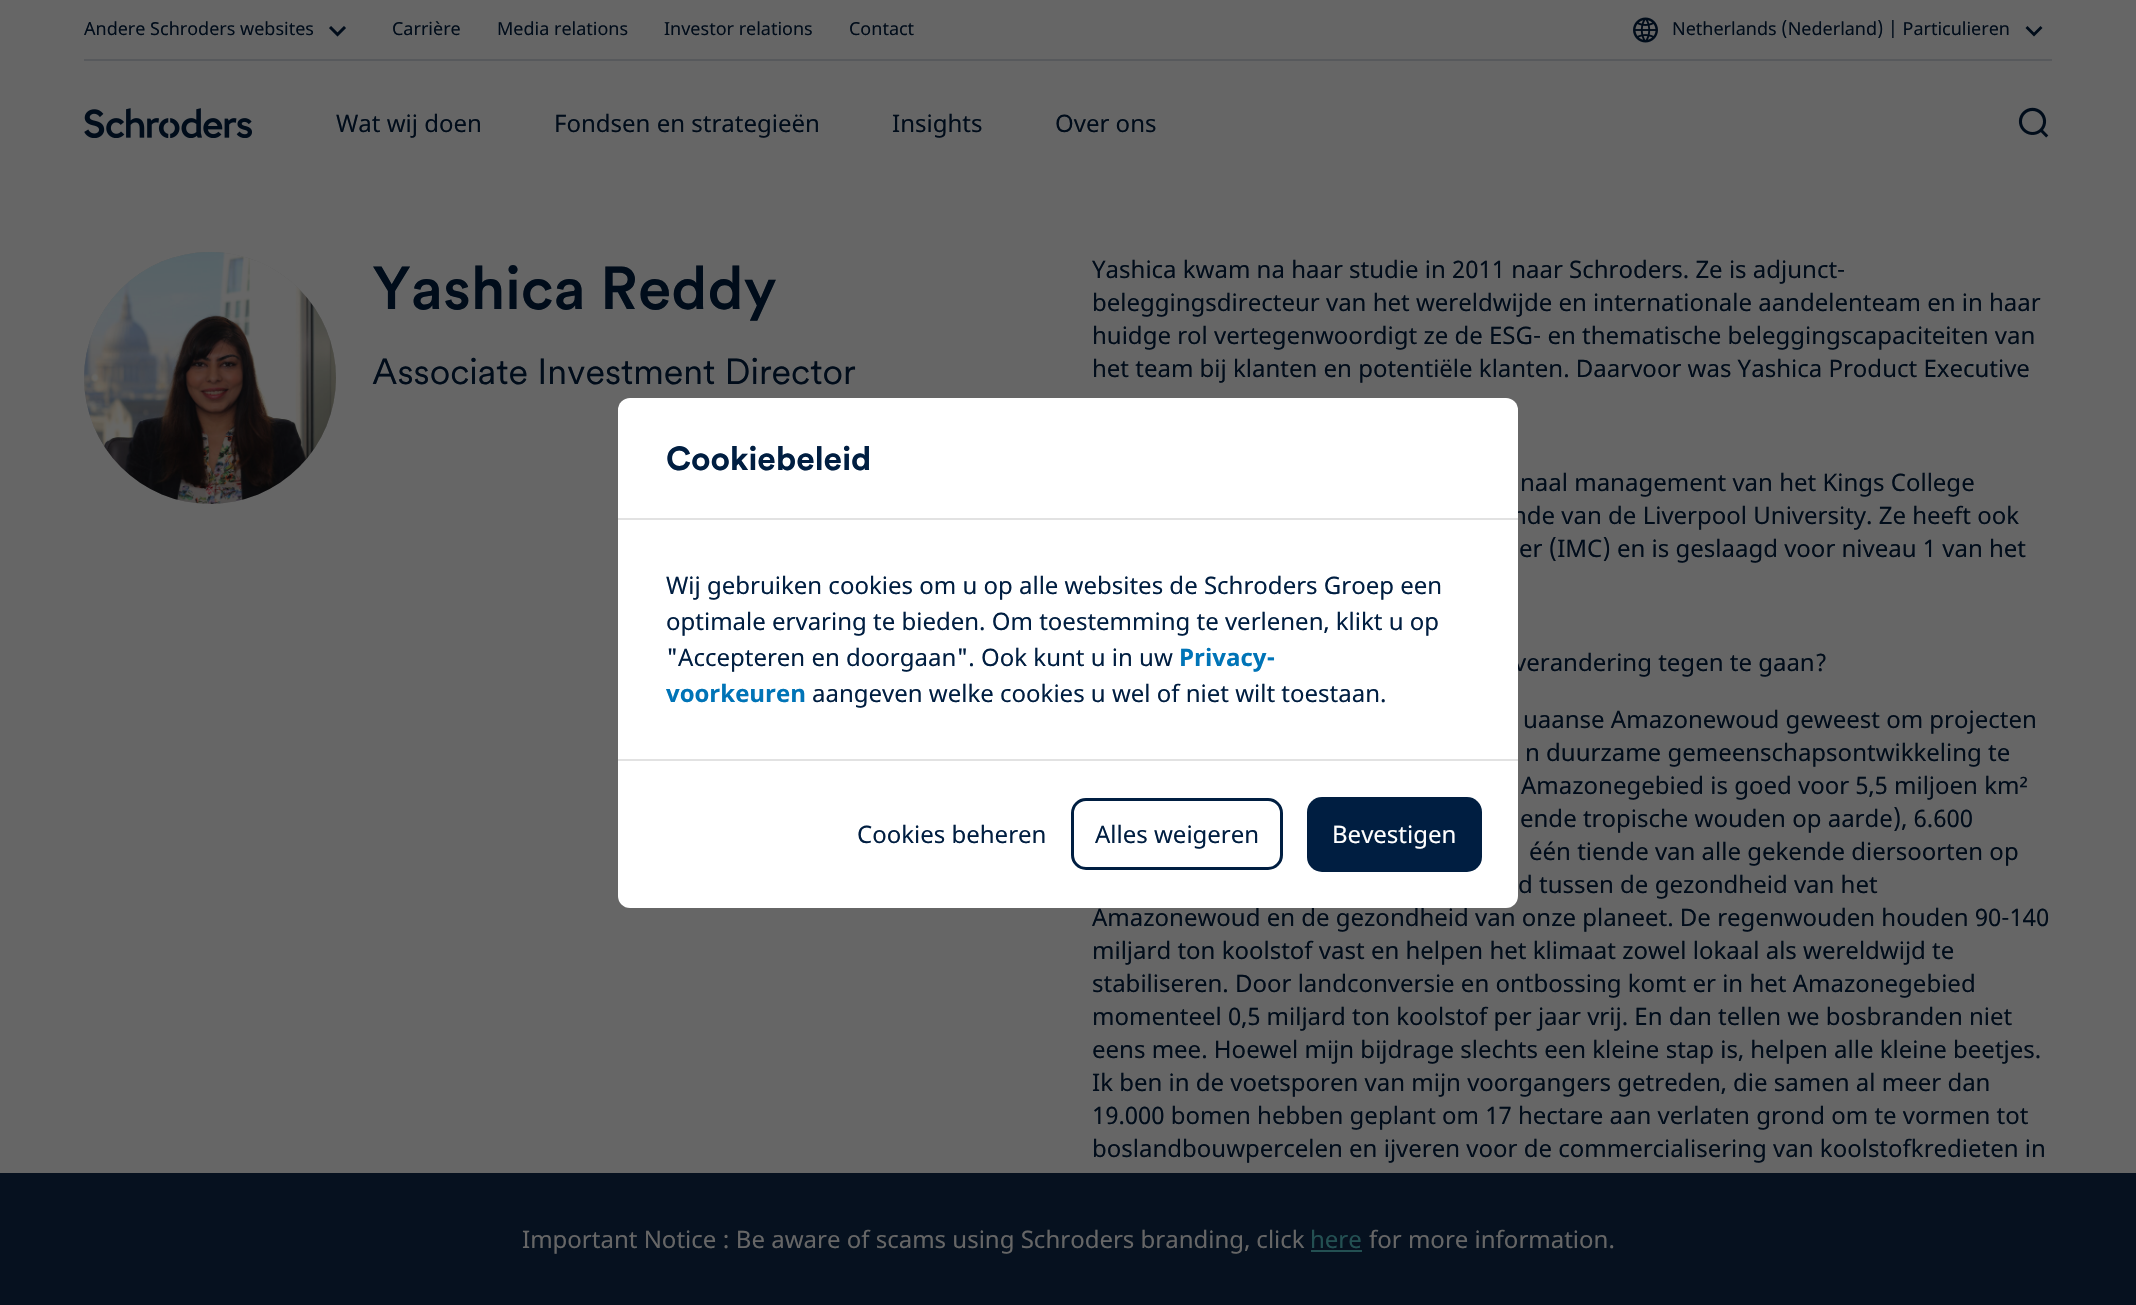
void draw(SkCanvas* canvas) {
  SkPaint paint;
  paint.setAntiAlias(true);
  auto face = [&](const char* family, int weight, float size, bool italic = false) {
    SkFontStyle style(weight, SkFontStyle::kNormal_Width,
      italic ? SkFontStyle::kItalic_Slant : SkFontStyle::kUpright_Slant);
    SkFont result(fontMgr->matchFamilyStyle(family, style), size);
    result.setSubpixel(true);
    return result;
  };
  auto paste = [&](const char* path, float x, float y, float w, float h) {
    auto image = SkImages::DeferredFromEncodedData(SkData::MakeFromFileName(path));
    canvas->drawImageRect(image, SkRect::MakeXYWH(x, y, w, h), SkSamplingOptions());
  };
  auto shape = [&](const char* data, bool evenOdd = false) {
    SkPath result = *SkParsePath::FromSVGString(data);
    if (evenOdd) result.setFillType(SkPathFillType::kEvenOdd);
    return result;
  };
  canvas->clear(0xff666666);
  paint.setColor(0xff57595c);
  canvas->drawRect(SkRect::MakeXYWH(84, 59, 1968, 2), paint);
  paste("img/1.png", 329, 26, 17, 11);
  paste("img/2.png", 1633, 17, 25, 26);
  paint.setColor(0xff000c1a);
  canvas->drawPath(shape("M2040.5 26L2042.5 28L2034 36.5L2025.5 28L2027.5 26L2034 32.5Z", true), paint);
  paste("img/3.png", 84, 108, 168, 30);
  paste("img/4.png", 2018, 107, 31, 31);
  paint.setColor(0xff5a5a5a);
  canvas->drawCircle(210, 378, 126, paint);
  paste("img/5.png", 84, 252, 252, 252);
  paint.setColor(0xf2000c1a);
  canvas->drawRect(SkRect::MakeXYWH(0, 1173, 2136, 132), paint);
  paint.setColor(0xff235052);
  canvas->drawRect(SkRect::MakeXYWH(1311, 1250, 51, 2), paint);
  auto f0 = face("Noto Sans", 400, 18);
  paint.setColor(0xff000c1a);
  {
    const struct { const char* s; float x, y; } items[] = {
      {"Andere Schroders websites", 84, 35},
      {"Carrière", 392, 35},
      {"Media relations", 497, 35},
      {"Investor relations", 664, 35},
      {"Contact", 849, 35},
      {"Netherlands (Nederland) | Particulieren", 1672, 35},
    };
    for (auto [s, x, y] : items) {
      canvas->drawString(s, x, y, f0, paint);
    }
  }
  auto f1 = face("Noto Sans", 400, 24);
  {
    const struct { const char* s; float x, y; } items[] = {
      {"Wat wij doen", 336, 132},
      {"Fondsen en strategieën", 554, 132},
      {"Insights", 892, 132},
      {"Over ons", 1055, 132},
    };
    for (auto [s, x, y] : items) {
      canvas->drawString(s, x, y, f1, paint);
    }
  }
  auto f2 = face("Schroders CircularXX", 500, 60);
  canvas->drawString("Yashica Reddy", 372, 309, f2, paint);
  auto f3 = face("Schroders CircularXX", 400, 36);
  canvas->drawString("Associate Investment Director", 372, 384, f3, paint);
  {
    const struct { const char* s; float x, y; } items[] = {
      {"Yashica kwam na haar studie in 2011 naar Schroders. Ze is adjunct-", 1092, 278},
      {"beleggingsdirecteur van het wereldwijde en internationale aandelenteam en in haar", 1092, 311},
      {"huidge rol vertegenwoordigt ze de ESG- en thematische beleggingscapaciteiten van", 1092, 344},
      {"het team bij klanten en potentiële klanten. Daarvoor was Yashica Product Executive", 1092, 377},
      {"naal management van het Kings College", 1520, 491},
      {"nde van de Liverpool University. Ze heeft ook", 1512, 524},
      {"er (IMC) en is geslaagd voor niveau 1 van het", 1519, 557},
      {"verandering tegen te gaan?", 1514, 671},
      {"uaanse Amazonewoud geweest om projecten", 1523, 728},
      {"n duurzame gemeenschapsontwikkeling te", 1525, 761},
      {"Amazonegebied is goed voor 5,5 miljoen km²", 1521, 794},
      {"ende tropische wouden op aarde), 6.600", 1520, 827},
      {"één tiende van alle gekende diersoorten op", 1529, 860},
      {"d tussen de gezondheid van het", 1518, 893},
      {"Amazonewoud en de gezondheid van onze planeet. De regenwouden houden 90-140", 1092, 926},
      {"miljard ton koolstof vast en helpen het klimaat zowel lokaal als wereldwijd te", 1092, 959},
      {"stabiliseren. Door landconversie en ontbossing komt er in het Amazonegebied", 1092, 992},
      {"momenteel 0,5 miljard ton koolstof per jaar vrij. En dan tellen we bosbranden niet", 1092, 1025},
      {"eens mee. Hoewel mijn bijdrage slechts een kleine stap is, helpen alle kleine beetjes.", 1092, 1058},
      {"Ik ben in de voetsporen van mijn voorgangers getreden, die samen al meer dan", 1092, 1091},
      {"19.000 bomen hebben geplant om 17 hectare aan verlaten grond om te vormen tot", 1092, 1124},
      {"boslandbouwpercelen en ijveren voor de commercialisering van koolstofkredieten in", 1092, 1157},
    };
    for (auto [s, x, y] : items) {
      canvas->drawString(s, x, y, f1, paint);
    }
  }
  paint.setColor(0xff666666);
  canvas->drawString("Important Notice : Be aware of scams using Schroders branding, click", 522, 1248, f1, paint);
  paint.setColor(0xff235052);
  canvas->drawString("here", 1310, 1248, f1, paint);
  paint.setColor(0xff666666);
  canvas->drawString("for more information.", 1369, 1248, f1, paint);
  paint.setColor(0xffffffff);
  canvas->drawRoundRect(SkRect::MakeXYWH(618, 398, 900, 510), 12, 12, paint);
  paint.setColor(0xffe2e2e2);
  canvas->drawRect(SkRect::MakeXYWH(618, 518, 900, 2), paint);
  auto f4 = face("Schroders CircularXX", 700, 33);
  paint.setColor(0xff001e41);
  canvas->drawString("Cookiebeleid", 666, 470, f4, paint);
  {
    const struct { const char* s; float x, y; } items[] = {
      {"Wij gebruiken cookies om u op alle websites de Schroders Groep een", 666, 594},
      {"optimale ervaring te bieden. Om toestemming te verlenen, klikt u op", 666, 630},
      {"\"Accepteren en doorgaan\". Ook kunt u in uw", 666, 666},
    };
    for (auto [s, x, y] : items) {
      canvas->drawString(s, x, y, f1, paint);
    }
  }
  auto f5 = face("Noto Sans", 700, 24);
  paint.setColor(0xff0074b7);
  canvas->drawString("Privacy-", 1179, 666, f5, paint);
  canvas->drawString("voorkeuren", 666, 702, f5, paint);
  paint.setColor(0xff001e41);
  canvas->drawString("aangeven welke cookies u wel of niet wilt toestaan.", 812, 702, f1, paint);
  paint.setColor(0xffe2e2e2);
  canvas->drawRect(SkRect::MakeXYWH(618, 759, 900, 2), paint);
  paint.setColor(0xff001e41);
  canvas->drawString("Cookies beheren", 857, 843, f1, paint);
  paint.setStroke(true);
  paint.setStrokeWidth(3);
  canvas->drawRoundRect(SkRect::MakeXYWH(1072.5f, 799.5f, 209, 69), 13.5f, 13.5f, paint);
  paint.setStroke(false);
  canvas->drawString("Alles weigeren", 1095, 843, f1, paint);
  canvas->drawRoundRect(SkRect::MakeXYWH(1307, 797, 175, 75), 15, 15, paint);
  paint.setColor(0xffffffff);
  canvas->drawString("Bevestigen", 1332, 843, f1, paint);
}
